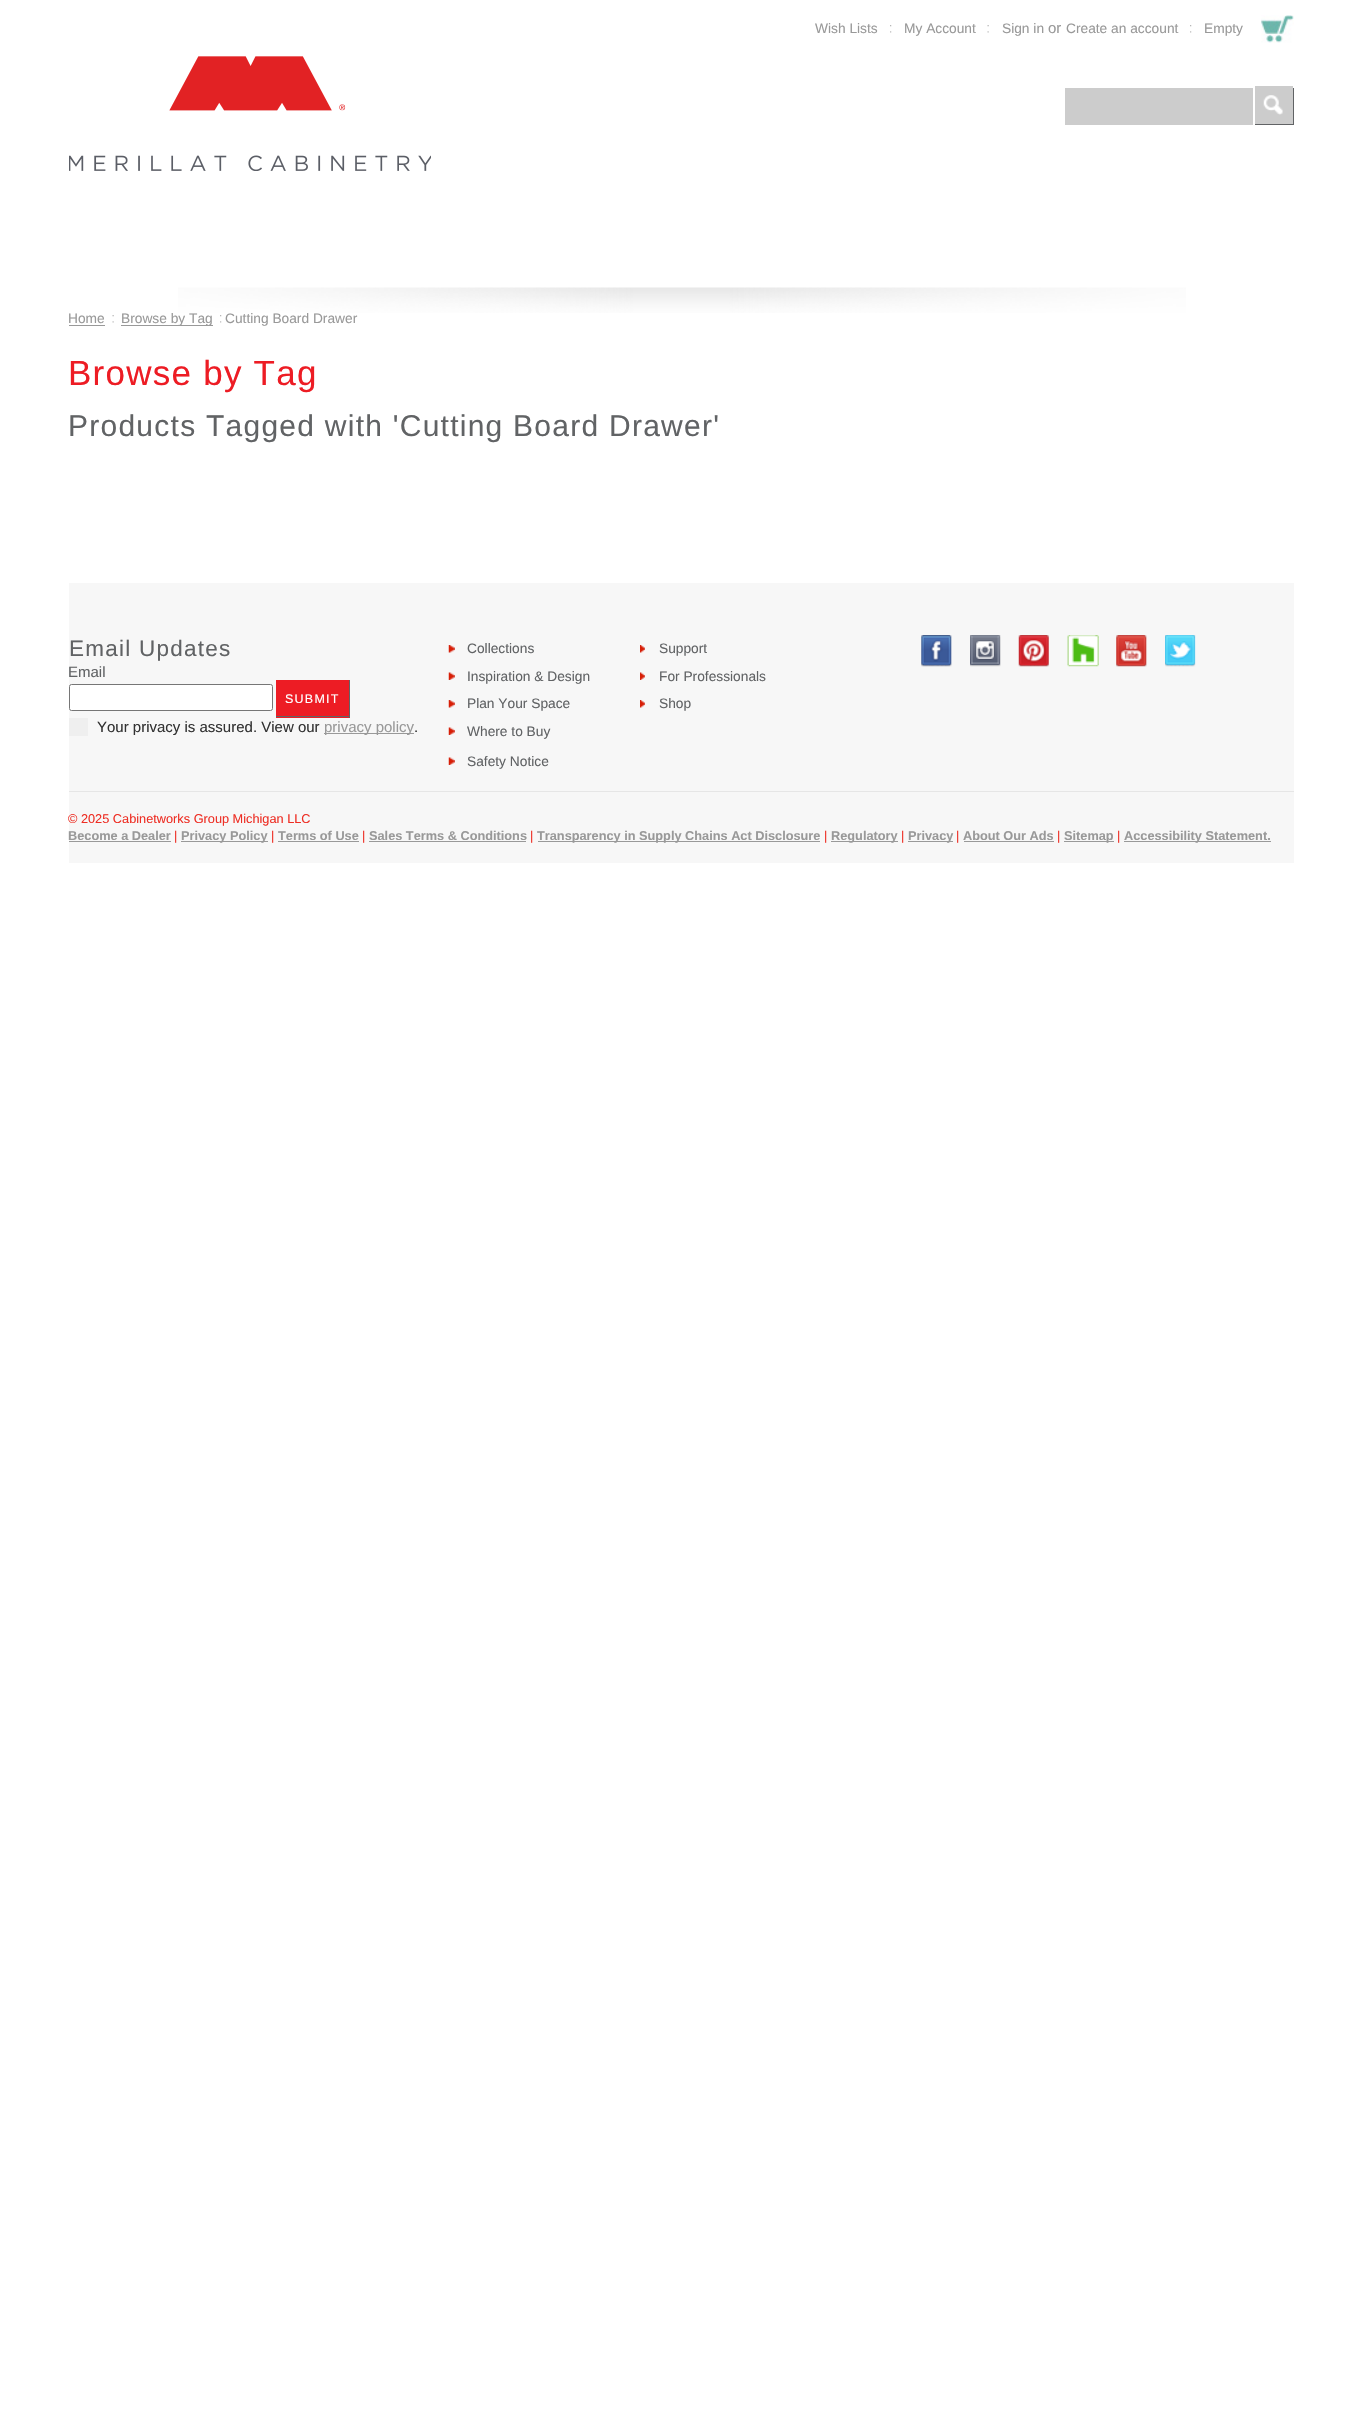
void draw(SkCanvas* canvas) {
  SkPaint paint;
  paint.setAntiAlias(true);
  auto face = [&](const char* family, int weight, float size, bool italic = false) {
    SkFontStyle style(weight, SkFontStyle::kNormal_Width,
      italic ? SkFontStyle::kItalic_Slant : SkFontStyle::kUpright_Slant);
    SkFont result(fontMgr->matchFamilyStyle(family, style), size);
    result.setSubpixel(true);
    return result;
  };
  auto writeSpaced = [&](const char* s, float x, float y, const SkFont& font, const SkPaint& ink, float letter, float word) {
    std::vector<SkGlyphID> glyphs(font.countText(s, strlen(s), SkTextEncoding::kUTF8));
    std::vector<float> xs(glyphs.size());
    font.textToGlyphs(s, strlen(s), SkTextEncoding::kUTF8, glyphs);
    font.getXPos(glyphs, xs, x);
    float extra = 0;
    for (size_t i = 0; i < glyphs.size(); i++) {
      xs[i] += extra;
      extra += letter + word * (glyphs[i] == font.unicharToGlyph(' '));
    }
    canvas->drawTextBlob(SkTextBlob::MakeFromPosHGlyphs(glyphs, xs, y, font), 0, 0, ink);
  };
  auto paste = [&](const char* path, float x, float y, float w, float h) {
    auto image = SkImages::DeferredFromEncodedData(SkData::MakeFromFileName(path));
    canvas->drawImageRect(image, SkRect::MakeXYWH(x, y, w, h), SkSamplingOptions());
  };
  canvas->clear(0xffffffff);
  paste("img/1.png", 890, 25, 2, 8);
  paste("img/2.png", 987, 25, 2, 8);
  paste("img/1.png", 1190, 25, 2, 8);
  paste("img/3.png", 1261, 15, 33, 28);
  paste("img/4.png", 69, 56, 362, 115);
  {
    const struct { float x, y, w, h; SkColor color; } items[] = {
      {1065, 88, 188, 37, 0xffcccccc},
      {1293, 88, 1, 37, 0xff616365},
      {1255, 124, 39, 1, 0xff616365},
      {1255, 86, 38, 38, 0xffcccccc},
    };
    for (auto [x, y, w, h, color] : items) {
      paint.setColor(color);
      canvas->drawRect(SkRect::MakeXYWH(x, y, w, h), paint);
    }
  }
  paste("img/5.png", 1263, 95, 20, 20);
  paste("img/6.png", 178, 287, 1008, 26);
  paste("img/2.png", 112, 315, 2, 8);
  paint.setColor(0xff999999);
  canvas->drawRect(SkRect::MakeXYWH(69, 325, 36, 1), paint);
  paste("img/1.png", 220, 315, 2, 8);
  canvas->drawRect(SkRect::MakeXYWH(121, 325, 92, 1), paint);
  paint.setColor(0xfff7f7f7);
  canvas->drawRect(SkRect::MakeXYWH(69, 583, 1225, 280), paint);
  paint.setColor(0xffffffff);
  canvas->drawRoundRect(SkRect::MakeXYWH(69.5f, 684.5f, 203, 26), 2, 2, paint);
  paint.setStroke(true);
  paint.setStrokeWidth(1);
  paint.setColor(0xff767676);
  canvas->drawRoundRect(SkRect::MakeXYWH(69.5f, 684.5f, 203, 26), 2, 2, paint);
  paint.setStroke(false);
  {
    const struct { float x, y, w, h; SkColor color; } items[] = {
      {276, 680, 73, 38, 0xffed1c24},
      {349, 680, 1, 38, 0xff616365},
      {276, 716, 74, 1, 0xff616365},
      {69, 718, 19, 18, 0xffefefef},
      {324, 733, 90, 1, 0xff999999},
    };
    for (auto [x, y, w, h, color] : items) {
      paint.setColor(color);
      canvas->drawRect(SkRect::MakeXYWH(x, y, w, h), paint);
    }
  }
  paste("img/7.png", 448, 645, 7, 8);
  paste("img/8.png", 640, 645, 5, 8);
  paste("img/9.png", 448, 672, 7, 8);
  paste("img/10.png", 640, 672, 5, 8);
  paste("img/7.png", 448, 700, 7, 8);
  paste("img/8.png", 640, 700, 5, 8);
  paste("img/9.png", 448, 727, 7, 8);
  paste("img/9.png", 448, 757, 7, 8);
  paste("img/11.png", 921, 635, 31, 32);
  paste("img/12.png", 970, 635, 31, 32);
  paste("img/13.png", 1018, 635, 31, 32);
  paste("img/14.png", 1067, 635, 32, 32);
  paste("img/15.png", 1116, 635, 31, 32);
  paste("img/16.png", 1165, 635, 31, 32);
  {
    const struct { float x, y, w, h; SkColor color; } items[] = {
      {69, 791, 1225, 1, 0xffe6e6e6},
      {69, 841, 102, 1, 0xff999999},
      {181, 841, 87, 1, 0xff999999},
      {278, 841, 81, 1, 0xff999999},
      {369, 841, 157, 1, 0xff999999},
      {538, 841, 282, 1, 0xff999999},
      {831, 841, 67, 1, 0xff999999},
      {908, 841, 45, 1, 0xff999999},
      {964, 841, 90, 1, 0xff999999},
      {1064, 841, 50, 1, 0xff999999},
      {1124, 841, 147, 1, 0xff999999},
    };
    for (auto [x, y, w, h, color] : items) {
      paint.setColor(color);
      canvas->drawRect(SkRect::MakeXYWH(x, y, w, h), paint);
    }
  }
  auto f0 = face("Liberation Sans", 400, 13.75f);
  {
    const struct { const char* s; float x, y; } items[] = {
      {"Wish Lists", 815, 33},
      {"My Account", 904, 33},
      {"Sign in", 1002, 33},
    };
    for (auto [s, x, y] : items) {
      canvas->drawString(s, x, y, f0, paint);
    }
  }
  auto f1 = face("Liberation Sans", 400, 15);
  canvas->drawString("or", 1048, 33, f1, paint);
  {
    const struct { const char* s; float x, y; } items[] = {
      {"Create an account", 1066, 33},
      {"Empty", 1204, 33},
      {"Home", 68, 323},
      {"Browse by Tag", 121, 323},
      {"Cutting Board Drawer", 225, 323},
    };
    for (auto [s, x, y] : items) {
      canvas->drawString(s, x, y, f0, paint);
    }
  }
  auto f2 = face("Liberation Sans", 400, 35);
  paint.setColor(0xffed1c24);
  writeSpaced("Browse by Tag", 68, 385, f2, paint, 1.25f, 0);
  auto f3 = face("Liberation Sans", 400, 30);
  paint.setColor(0xff616365);
  writeSpaced("Products Tagged with 'Cutting Board Drawer'", 68, 436, f3, paint, 1.25f, 0);
  auto f4 = face("Liberation Sans", 400, 22.5f);
  writeSpaced("Email Updates", 69, 656, f4, paint, 1.25f, 0);
  canvas->drawString("Email", 68, 677, f1, paint);
  auto f5 = face("Liberation Sans", 400, 12.5f);
  paint.setColor(0xffffffff);
  writeSpaced("SUBMIT", 285, 703, f5, paint, 1.25f, 0);
  paint.setColor(0xff333333);
  canvas->drawString("Your privacy is assured. View our", 97, 732, f1, paint);
  paint.setColor(0xff999999);
  canvas->drawString("privacy policy", 324, 732, f1, paint);
  paint.setColor(0xff333333);
  canvas->drawString(".", 414, 732, f1, paint);
  paint.setColor(0xff616365);
  {
    const struct { const char* s; float x, y; } items[] = {
      {"Collections", 467, 653},
      {"Support", 659, 653},
      {"Inspiration & Design", 467, 681},
      {"For Professionals", 659, 681},
      {"Plan Your Space", 467, 708},
      {"Shop", 659, 708},
      {"Where to Buy", 467, 736},
      {"Safety Notice", 467, 766},
    };
    for (auto [s, x, y] : items) {
      canvas->drawString(s, x, y, f0, paint);
    }
  }
  auto f6 = face("Liberation Sans", 400, 12.75f);
  paint.setColor(0xffee2e24);
  canvas->drawString("© 2025 Cabinetworks Group Michigan LLC", 68, 823, f6, paint);
  auto f7 = face("Liberation Sans", 700, 12.75f);
  paint.setColor(0xff999999);
  canvas->drawString("Become a Dealer", 68, 840, f7, paint);
  paint.setColor(0xffee2e24);
  canvas->drawString("|", 174, 840, f6, paint);
  paint.setColor(0xff999999);
  canvas->drawString("Privacy Policy", 181, 840, f7, paint);
  paint.setColor(0xffee2e24);
  canvas->drawString("|", 271, 840, f6, paint);
  paint.setColor(0xff999999);
  canvas->drawString("Terms of Use", 278, 840, f7, paint);
  paint.setColor(0xffee2e24);
  canvas->drawString("|", 362, 840, f6, paint);
  paint.setColor(0xff999999);
  canvas->drawString("Sales Terms & Conditions", 369, 840, f7, paint);
  paint.setColor(0xffee2e24);
  canvas->drawString("|", 530, 840, f6, paint);
  paint.setColor(0xff999999);
  canvas->drawString("Transparency in Supply Chains Act Disclosure", 537, 840, f7, paint);
  paint.setColor(0xffee2e24);
  canvas->drawString("|", 824, 840, f6, paint);
  paint.setColor(0xff999999);
  canvas->drawString("Regulatory", 831, 840, f7, paint);
  paint.setColor(0xffee2e24);
  canvas->drawString("|", 901, 840, f6, paint);
  paint.setColor(0xff999999);
  canvas->drawString("Privacy", 908, 840, f7, paint);
  paint.setColor(0xffee2e24);
  canvas->drawString("|", 956, 840, f6, paint);
  paint.setColor(0xff999999);
  canvas->drawString("About Our Ads", 963, 840, f7, paint);
  paint.setColor(0xffee2e24);
  canvas->drawString("|", 1057, 840, f6, paint);
  paint.setColor(0xff999999);
  canvas->drawString("Sitemap", 1064, 840, f7, paint);
  paint.setColor(0xffee2e24);
  canvas->drawString("|", 1117, 840, f6, paint);
  paint.setColor(0xff999999);
  canvas->drawString("Accessibility Statement.", 1124, 840, f7, paint);
}
